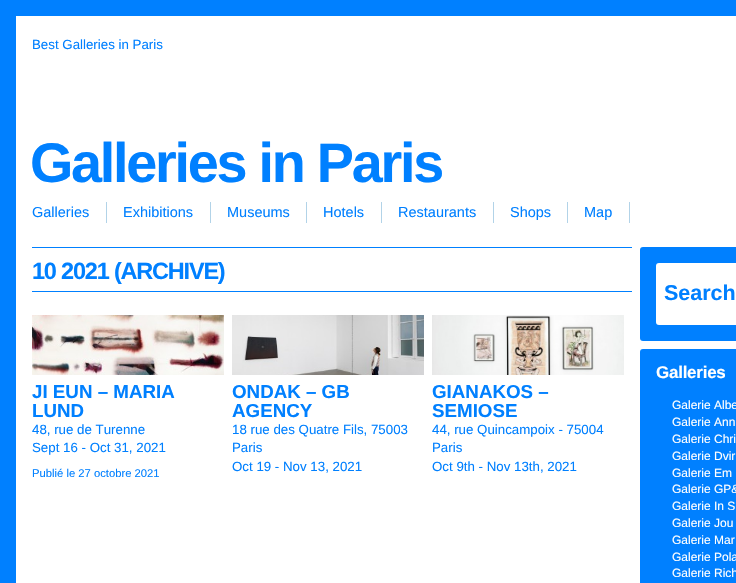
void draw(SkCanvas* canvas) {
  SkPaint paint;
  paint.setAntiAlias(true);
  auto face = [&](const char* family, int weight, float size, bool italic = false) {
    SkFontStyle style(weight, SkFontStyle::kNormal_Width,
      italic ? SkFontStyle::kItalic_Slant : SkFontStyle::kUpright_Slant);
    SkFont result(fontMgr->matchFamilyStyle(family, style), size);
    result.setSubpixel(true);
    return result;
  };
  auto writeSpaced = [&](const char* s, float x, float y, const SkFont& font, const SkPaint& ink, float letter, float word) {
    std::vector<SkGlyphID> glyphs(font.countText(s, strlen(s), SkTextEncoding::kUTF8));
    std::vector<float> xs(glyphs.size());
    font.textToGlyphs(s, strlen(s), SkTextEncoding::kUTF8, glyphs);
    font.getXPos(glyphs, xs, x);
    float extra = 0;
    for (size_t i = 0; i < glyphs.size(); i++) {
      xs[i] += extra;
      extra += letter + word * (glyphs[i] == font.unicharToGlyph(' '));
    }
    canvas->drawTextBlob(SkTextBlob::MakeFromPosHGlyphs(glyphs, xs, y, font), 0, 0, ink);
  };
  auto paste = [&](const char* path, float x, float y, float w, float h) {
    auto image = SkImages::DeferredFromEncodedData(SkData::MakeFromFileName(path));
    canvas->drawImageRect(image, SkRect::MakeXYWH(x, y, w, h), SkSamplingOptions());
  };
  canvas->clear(0xff0080ff);
  {
    const struct { float x, y, w, h; SkColor color; } items[] = {
      {16, 16, 720, 567, 0xffffffff},
      {106, 202, 1, 21, 0xffb2d3e8},
      {210, 202, 1, 21, 0xffb2d3e8},
      {306, 202, 1, 21, 0xffb2d3e8},
      {381, 202, 1, 21, 0xffb2d3e8},
      {493, 202, 1, 21, 0xffb2d3e8},
      {567, 202, 1, 21, 0xffb2d3e8},
      {629, 202, 1, 21, 0xffb2d3e8},
      {32, 247, 600, 1, 0xff0080ff},
      {32, 291, 600, 1, 0xff0080ff},
    };
    for (auto [x, y, w, h, color] : items) {
      paint.setColor(color);
      canvas->drawRect(SkRect::MakeXYWH(x, y, w, h), paint);
    }
  }
  paste("img/1.png", 32, 315, 192, 60);
  paste("img/2.png", 232, 315, 192, 60);
  paste("img/3.png", 432, 315, 192, 60);
  canvas->drawRoundRect(SkRect::MakeXYWH(640, 247, 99, 94), 3, 3, paint);
  paint.setColor(0xffffffff);
  canvas->drawRoundRect(SkRect::MakeXYWH(656, 263, 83, 62), 3, 3, paint);
  paint.setColor(0xff0080ff);
  canvas->drawRoundRect(SkRect::MakeXYWH(640, 349, 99, 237), 3, 3, paint);
  auto f0 = face("Liberation Sans", 400, 13.3f);
  canvas->drawString("Best Galleries in Paris", 32, 49, f0, paint);
  auto f1 = face("Liberation Sans", 700, 55.75f);
  writeSpaced("Galleries in Paris", 30, 182, f1, paint, -2.25f, 0);
  auto f2 = face("Liberation Sans", 400, 14.5f);
  {
    const struct { const char* s; float x, y; } items[] = {
      {"Galleries", 32, 217},
      {"Exhibitions", 123, 217},
      {"Museums", 227, 217},
      {"Hotels", 323, 217},
      {"Restaurants", 398, 217},
      {"Shops", 510, 217},
      {"Map", 584, 217},
    };
    for (auto [s, x, y] : items) {
      canvas->drawString(s, x, y, f2, paint);
    }
  }
  auto f3 = face("Liberation Sans", 700, 23.5f);
  writeSpaced("10 2021 (ARCHIVE)", 32, 279, f3, paint, -1.2f, 0);
  auto f4 = face("Liberation Sans", 700, 18.75f);
  canvas->drawString("JI EUN – MARIA", 32, 398, f4, paint);
  canvas->drawString("LUND", 32, 417, f4, paint);
  canvas->drawString("48, rue de Turenne", 32, 434, f0, paint);
  canvas->drawString("Sept 16 - Oct 31, 2021", 32, 452, f0, paint);
  auto f5 = face("Liberation Sans", 400, 11.25f);
  canvas->drawString("Publié le 27 octobre 2021", 32, 477, f5, paint);
  canvas->drawString("ONDAK – GB", 232, 398, f4, paint);
  canvas->drawString("AGENCY", 232, 417, f4, paint);
  {
    const struct { const char* s; float x, y; } items[] = {
      {"18 rue des Quatre Fils, 75003", 232, 434},
      {"Paris", 232, 452},
      {"Oct 19 - Nov 13, 2021", 232, 471},
    };
    for (auto [s, x, y] : items) {
      canvas->drawString(s, x, y, f0, paint);
    }
  }
  canvas->drawString("GIANAKOS –", 432, 398, f4, paint);
  canvas->drawString("SEMIOSE", 432, 417, f4, paint);
  {
    const struct { const char* s; float x, y; } items[] = {
      {"44, rue Quincampoix - 75004", 432, 434},
      {"Paris", 432, 452},
      {"Oct 9th - Nov 13th, 2021", 432, 471},
    };
    for (auto [s, x, y] : items) {
      canvas->drawString(s, x, y, f0, paint);
    }
  }
  auto f6 = face("Liberation Sans", 700, 21.5f);
  canvas->drawString("Search", 664, 300, f6, paint);
  auto f7 = face("Liberation Sans", 700, 17);
  paint.setColor(0xffffffff);
  writeSpaced("Galleries", 656, 378, f7, paint, -0.25f, 0);
  auto f8 = face("Liberation Sans", 400, 12);
  {
    const struct { const char* s; float x, y; } items[] = {
      {"Galerie Albe", 672, 409},
      {"Galerie Ann", 672, 426},
      {"Galerie Chri", 672, 443},
      {"Galerie Dvir", 672, 460},
      {"Galerie Em", 672, 477},
      {"Galerie GP&", 672, 493},
      {"Galerie In S", 672, 510},
      {"Galerie Jou", 672, 527},
      {"Galerie Mar", 672, 544},
      {"Galerie Pola", 672, 561},
      {"Galerie Rich", 672, 577},
    };
    for (auto [s, x, y] : items) {
      canvas->drawString(s, x, y, f8, paint);
    }
  }
}
